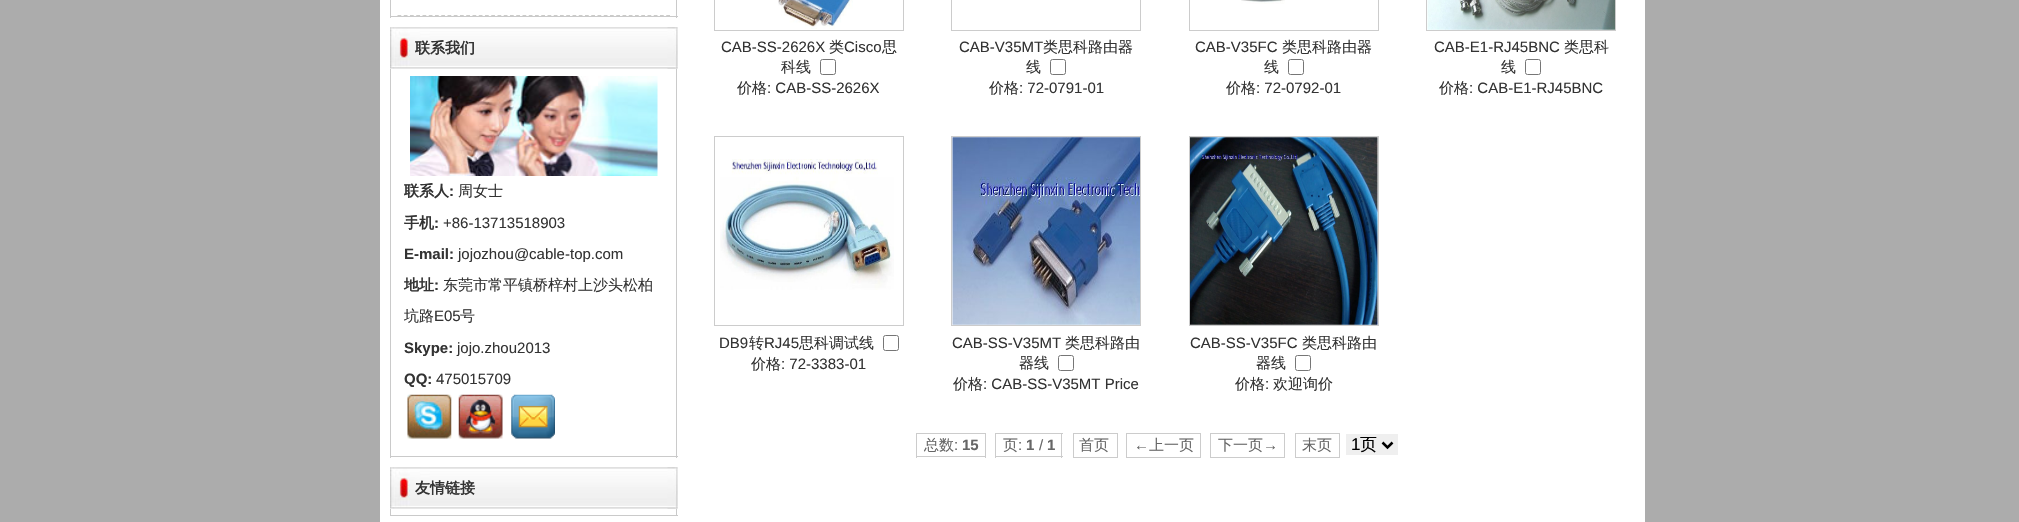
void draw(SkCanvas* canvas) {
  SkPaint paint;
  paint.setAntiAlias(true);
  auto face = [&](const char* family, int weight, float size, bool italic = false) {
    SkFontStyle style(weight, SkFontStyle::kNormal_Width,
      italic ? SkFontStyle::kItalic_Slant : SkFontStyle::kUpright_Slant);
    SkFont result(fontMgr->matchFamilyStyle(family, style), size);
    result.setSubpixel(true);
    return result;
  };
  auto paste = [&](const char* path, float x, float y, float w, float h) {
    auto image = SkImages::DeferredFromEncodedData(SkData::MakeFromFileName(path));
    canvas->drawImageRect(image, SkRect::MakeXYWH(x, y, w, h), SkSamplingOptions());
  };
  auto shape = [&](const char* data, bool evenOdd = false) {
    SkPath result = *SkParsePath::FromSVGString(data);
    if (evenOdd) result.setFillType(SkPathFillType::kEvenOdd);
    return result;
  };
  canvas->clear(0xffacacac);
  {
    const struct { float x, y, w, h; SkColor color; } items[] = {
      {380, 0, 1265, 522, 0xffffffff},
      {676, 0, 1, 18, 0xffcacaca},
      {390, 16, 288, 1, 0xffcacaca},
      {390, 0, 1, 18, 0xffcacaca},
    };
    for (auto [x, y, w, h, color] : items) {
      paint.setColor(color);
      canvas->drawRect(SkRect::MakeXYWH(x, y, w, h), paint);
    }
  }
  paint.setStroke(true);
  paint.setStrokeWidth(1.2f);
  paint.setColor(0xffcbcbc9);
  paint.setPathEffect(SkDashPathEffect::Make({{3.75f, 2.5f}}, 0));
  canvas->drawPath(shape("M397.5 15.5H670"), paint);
  paint.setPathEffect(nullptr);
  paste("img/1.png", 390, 27, 288, 42);
  paste("img/2.png", 667, 27, 11, 42);
  paint.setStroke(false);
  {
    const struct { float x, y, w, h; SkColor color; } items[] = {
      {676, 69, 1, 389, 0xffcacaca},
      {390, 456, 288, 1, 0xffcacaca},
      {390, 69, 1, 389, 0xffcacaca},
    };
    for (auto [x, y, w, h, color] : items) {
      paint.setColor(color);
      canvas->drawRect(SkRect::MakeXYWH(x, y, w, h), paint);
    }
  }
  paste("img/3.png", 410, 76, 248, 100);
  paste("img/4.png", 407, 394, 45, 45);
  paste("img/5.png", 458, 394, 45, 45);
  paste("img/6.png", 511, 394, 44, 45);
  paste("img/7.png", 390, 467, 288, 42);
  paste("img/8.png", 667, 467, 11, 42);
  {
    const struct { float x, y, w, h; SkColor color; } items[] = {
      {676, 509, 1, 7, 0xffcacaca},
      {390, 515, 288, 1, 0xffcacaca},
      {390, 509, 1, 7, 0xffcacaca},
    };
    for (auto [x, y, w, h, color] : items) {
      paint.setColor(color);
      canvas->drawRect(SkRect::MakeXYWH(x, y, w, h), paint);
    }
  }
  paint.setStroke(true);
  paint.setStrokeWidth(1);
  paint.setColor(0xffcccccc);
  canvas->drawRect(SkRect::MakeXYWH(714.5f, -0.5f, 189, 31), paint);
  paste("img/9.png", 778, 0, 75, 29);
  paint.setColor(0xff767676);
  canvas->drawRoundRect(SkRect::MakeXYWH(820.5f, 59.5f, 15, 15), 2, 2, paint);
  paint.setColor(0xffcccccc);
  canvas->drawRect(SkRect::MakeXYWH(951.5f, -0.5f, 189, 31), paint);
  paint.setColor(0xff767676);
  canvas->drawRoundRect(SkRect::MakeXYWH(1050.5f, 59.5f, 15, 15), 2, 2, paint);
  paint.setColor(0xffcccccc);
  canvas->drawRect(SkRect::MakeXYWH(1189.5f, -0.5f, 189, 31), paint);
  paste("img/10.png", 1241, 0, 44, 4);
  paint.setColor(0xff767676);
  canvas->drawRoundRect(SkRect::MakeXYWH(1288.5f, 59.5f, 15, 15), 2, 2, paint);
  paint.setColor(0xffcccccc);
  canvas->drawRect(SkRect::MakeXYWH(1426.5f, -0.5f, 189, 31), paint);
  paste("img/11.png", 1427, 0, 188, 30);
  paint.setColor(0xff767676);
  canvas->drawRoundRect(SkRect::MakeXYWH(1525.5f, 59.5f, 15, 15), 2, 2, paint);
  paint.setColor(0xffcccccc);
  canvas->drawRect(SkRect::MakeXYWH(714.5f, 136.5f, 189, 189), paint);
  paste("img/12.png", 720, 159, 174, 131);
  paint.setColor(0xff767676);
  canvas->drawRoundRect(SkRect::MakeXYWH(883.5f, 335.5f, 15, 15), 2, 2, paint);
  paint.setColor(0xffcccccc);
  canvas->drawRect(SkRect::MakeXYWH(951.5f, 136.5f, 189, 189), paint);
  paste("img/13.png", 952, 137, 188, 188);
  paint.setColor(0xff767676);
  canvas->drawRoundRect(SkRect::MakeXYWH(1058.5f, 355.5f, 15, 15), 2, 2, paint);
  paint.setColor(0xffcccccc);
  canvas->drawRect(SkRect::MakeXYWH(1189.5f, 136.5f, 189, 189), paint);
  paste("img/14.png", 1190, 137, 188, 188);
  paint.setColor(0xff767676);
  canvas->drawRoundRect(SkRect::MakeXYWH(1295.5f, 355.5f, 15, 15), 2, 2, paint);
  paint.setStroke(false);
  {
    const struct { float x, y, w, h; SkColor color; } items[] = {
      {916, 433, 70, 1, 0xffcccccc},
      {916, 456, 45, 1, 0xffcccccc},
      {916, 433, 1, 25, 0xffcccccc},
      {985, 433, 1, 25, 0xffcccccc},
      {961, 456, 25, 1, 0xffcccccc},
      {995, 456, 53, 1, 0xffcccccc},
      {995, 433, 68, 1, 0xffcccccc},
      {995, 433, 1, 25, 0xffcccccc},
      {1061, 433, 1, 25, 0xffcccccc},
      {1048, 456, 15, 1, 0xffcccccc},
    };
    for (auto [x, y, w, h, color] : items) {
      paint.setColor(color);
      canvas->drawRect(SkRect::MakeXYWH(x, y, w, h), paint);
    }
  }
  paint.setStroke(true);
  canvas->drawRect(SkRect::MakeXYWH(1073.5f, 433.5f, 44, 24), paint);
  canvas->drawRect(SkRect::MakeXYWH(1126.5f, 433.5f, 74, 24), paint);
  canvas->drawRect(SkRect::MakeXYWH(1210.5f, 433.5f, 74, 24), paint);
  canvas->drawRect(SkRect::MakeXYWH(1295.5f, 433.5f, 44, 24), paint);
  paint.setStroke(false);
  paint.setColor(0xffefefef);
  canvas->drawRect(SkRect::MakeXYWH(1346, 434, 52, 21), paint);
  paint.setStroke(true);
  paint.setStrokeWidth(2.5f);
  paint.setColor(0xff000000);
  canvas->drawPath(shape("M1382.5 442.5L1387.5 447.5L1392.5 442.5"), paint);
  auto f0 = face("WenQuanYi Zen Hei", 700, 15);
  paint.setStroke(false);
  paint.setColor(0xff333333);
  canvas->drawString("联系我们", 415, 53, f0, paint);
  canvas->drawString("联系人", 404, 196, f0, paint);
  auto f1 = face("Liberation Sans", 700, 15);
  canvas->drawString(":", 449, 196, f1, paint);
  auto f2 = face("WenQuanYi Zen Hei", 500, 15);
  canvas->drawString("周女士", 458, 196, f2, paint);
  canvas->drawString("手机", 404, 228, f0, paint);
  canvas->drawString(":", 434, 228, f1, paint);
  auto f3 = face("Liberation Sans", 400, 15);
  canvas->drawString("+86-13713518903", 443, 228, f3, paint);
  canvas->drawString("E-mail:", 404, 259, f1, paint);
  canvas->drawString("jojozhou@cable-top.com", 458, 259, f3, paint);
  canvas->drawString("地址", 404, 290, f0, paint);
  canvas->drawString(":", 434, 290, f1, paint);
  canvas->drawString("东莞市常平镇桥梓村上沙头松柏", 443, 290, f2, paint);
  canvas->drawString("坑路", 404, 321, f2, paint);
  canvas->drawString("E05", 434, 321, f3, paint);
  canvas->drawString("号", 460, 321, f2, paint);
  canvas->drawString("Skype:", 404, 353, f1, paint);
  canvas->drawString("jojo.zhou2013", 457, 353, f3, paint);
  canvas->drawString("QQ:", 404, 384, f1, paint);
  canvas->drawString("475015709", 436, 384, f3, paint);
  canvas->drawString("友情链接", 415, 493, f0, paint);
  canvas->drawString("CAB-SS-2626X", 721, 52, f3, paint);
  canvas->drawString("类", 829, 52, f2, paint);
  canvas->drawString("Cisco", 844, 52, f3, paint);
  {
    const struct { const char* s; float x, y; } items[] = {
      {"思", 882, 52},
      {"科线", 781, 72},
      {"价格", 737, 93},
    };
    for (auto [s, x, y] : items) {
      canvas->drawString(s, x, y, f2, paint);
    }
  }
  canvas->drawString(": CAB-SS-2626X", 767, 93, f3, paint);
  canvas->drawString("CAB-V35MT", 959, 52, f3, paint);
  {
    const struct { const char* s; float x, y; } items[] = {
      {"类思科路由器", 1043, 52},
      {"线", 1026, 72},
      {"价格", 989, 93},
    };
    for (auto [s, x, y] : items) {
      canvas->drawString(s, x, y, f2, paint);
    }
  }
  canvas->drawString(": 72-0791-01", 1019, 93, f3, paint);
  canvas->drawString("CAB-V35FC", 1195, 52, f3, paint);
  {
    const struct { const char* s; float x, y; } items[] = {
      {"类思科路由器", 1282, 52},
      {"线", 1264, 72},
      {"价格", 1226, 93},
    };
    for (auto [s, x, y] : items) {
      canvas->drawString(s, x, y, f2, paint);
    }
  }
  canvas->drawString(": 72-0792-01", 1256, 93, f3, paint);
  canvas->drawString("CAB-E1-RJ45BNC", 1434, 52, f3, paint);
  {
    const struct { const char* s; float x, y; } items[] = {
      {"类思科", 1564, 52},
      {"线", 1501, 72},
      {"价格", 1439, 93},
    };
    for (auto [s, x, y] : items) {
      canvas->drawString(s, x, y, f2, paint);
    }
  }
  canvas->drawString(": CAB-E1-RJ45BNC", 1469, 93, f3, paint);
  canvas->drawString("DB9", 719, 348, f3, paint);
  canvas->drawString("转", 749, 348, f2, paint);
  canvas->drawString("RJ45", 764, 348, f3, paint);
  canvas->drawString("思科调试线", 799, 348, f2, paint);
  canvas->drawString("价格", 751, 369, f2, paint);
  canvas->drawString(": 72-3383-01", 781, 369, f3, paint);
  canvas->drawString("CAB-SS-V35MT", 952, 348, f3, paint);
  {
    const struct { const char* s; float x, y; } items[] = {
      {"类思科路由", 1065, 348},
      {"器线", 1019, 368},
      {"价格", 953, 389},
    };
    for (auto [s, x, y] : items) {
      canvas->drawString(s, x, y, f2, paint);
    }
  }
  canvas->drawString(": CAB-SS-V35MT Price", 983, 389, f3, paint);
  canvas->drawString("CAB-SS-V35FC", 1190, 348, f3, paint);
  {
    const struct { const char* s; float x, y; } items[] = {
      {"类思科路由", 1302, 348},
      {"器线", 1256, 368},
      {"价格", 1235, 389},
    };
    for (auto [s, x, y] : items) {
      canvas->drawString(s, x, y, f2, paint);
    }
  }
  canvas->drawString(":", 1265, 389, f3, paint);
  canvas->drawString("欢迎询价", 1273, 389, f2, paint);
  paint.setColor(0xff666666);
  canvas->drawString("总数", 924, 450, f2, paint);
  canvas->drawString(":", 954, 450, f3, paint);
  canvas->drawString("15", 962, 450, f1, paint);
  canvas->drawString("页", 1003, 450, f2, paint);
  canvas->drawString(":", 1018, 450, f3, paint);
  canvas->drawString("1", 1026, 450, f1, paint);
  canvas->drawString("/", 1039, 450, f3, paint);
  canvas->drawString("1", 1047, 450, f1, paint);
  canvas->drawString("首页", 1079, 450, f2, paint);
  canvas->drawString("←", 1134, 450, f3, paint);
  canvas->drawString("上一页", 1149, 450, f2, paint);
  canvas->drawString("下一页", 1218, 450, f2, paint);
  canvas->drawString("→", 1263, 450, f3, paint);
  canvas->drawString("末页", 1302, 450, f2, paint);
  auto f4 = face("Liberation Sans", 400, 17);
  paint.setColor(0xff000000);
  canvas->drawString("1", 1351, 450, f4, paint);
  auto f5 = face("WenQuanYi Zen Hei", 500, 17);
  canvas->drawString("页", 1360, 450, f5, paint);
}
